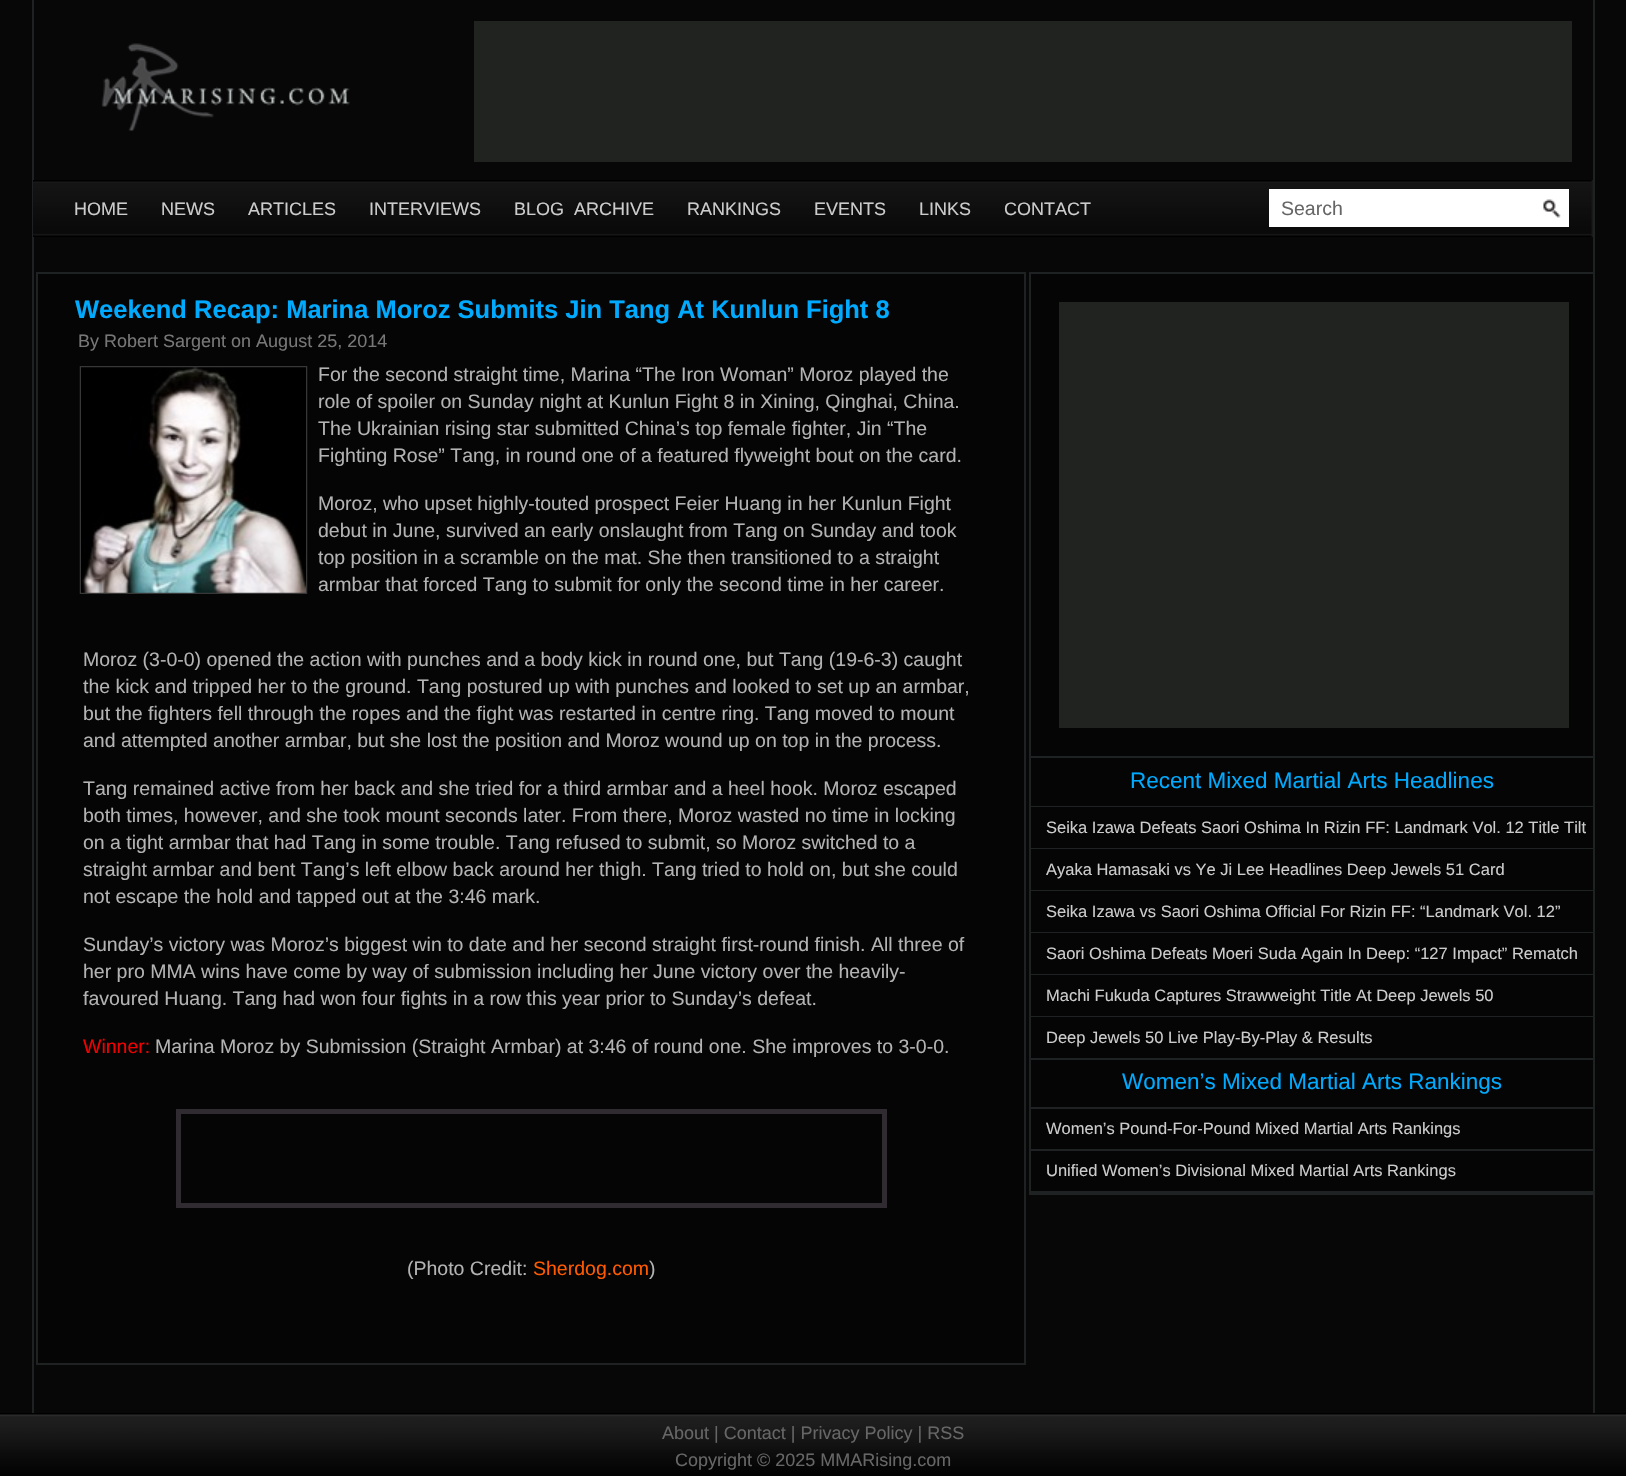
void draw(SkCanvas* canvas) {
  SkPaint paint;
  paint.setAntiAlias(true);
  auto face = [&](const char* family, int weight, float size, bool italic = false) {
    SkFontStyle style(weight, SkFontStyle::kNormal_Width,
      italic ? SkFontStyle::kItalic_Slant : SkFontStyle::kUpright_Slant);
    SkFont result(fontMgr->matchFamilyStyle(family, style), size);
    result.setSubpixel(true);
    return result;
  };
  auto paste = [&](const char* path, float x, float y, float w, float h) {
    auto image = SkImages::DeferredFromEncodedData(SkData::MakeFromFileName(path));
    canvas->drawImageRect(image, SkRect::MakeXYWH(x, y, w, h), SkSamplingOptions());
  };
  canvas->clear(0xff070708);
  paint.setColor(0xff1f2223);
  canvas->drawRect(SkRect::MakeXYWH(1593, 0, 2, 1413), paint);
  canvas->drawRect(SkRect::MakeXYWH(32, 0, 2, 1413), paint);
  paste("img/1.png", 101, 43, 249, 88);
  paint.setColor(0xff20231f);
  canvas->drawRect(SkRect::MakeXYWH(474, 21, 1098, 141), paint);
  paste("img/2.png", 33, 180, 1560, 57);
  paint.setColor(0xffffffff);
  canvas->drawRect(SkRect::MakeXYWH(1269, 189, 300, 38), paint);
  paste("img/3.png", 1543, 199, 18, 19);
  paint.setColor(0xff050505);
  canvas->drawRect(SkRect::MakeXYWH(37, 273, 988, 1091), paint);
  paint.setStroke(true);
  paint.setStrokeWidth(2);
  paint.setColor(0xff1f2223);
  canvas->drawRect(SkRect::MakeXYWH(37, 273, 988, 1091), paint);
  paste("img/4.png", 79, 366, 229, 228);
  paste("img/5.png", 81, 367, 225, 226);
  paint.setStrokeWidth(5);
  paint.setColor(0xff302b31);
  canvas->drawRect(SkRect::MakeXYWH(178.5f, 1111.5f, 706, 94), paint);
  paint.setStroke(false);
  {
    const struct { float x, y, w, h; SkColor color; } items[] = {
      {1031, 274, 562, 917, 0xff050505},
      {1029, 272, 564, 2, 0xff1f2223},
      {1029, 1193, 564, 2, 0xff1f2223},
      {1029, 272, 2, 922, 0xff1f2223},
      {1059, 302, 510, 426, 0xff20231f},
      {1031, 756, 562, 2, 0xff1f2223},
      {1031, 806, 562, 1, 0xff1f2223},
      {1031, 848, 562, 1, 0xff1f2223},
      {1031, 890, 562, 1, 0xff1f2223},
      {1031, 932, 562, 1, 0xff1f2223},
      {1031, 974, 562, 1, 0xff1f2223},
      {1031, 1016, 562, 1, 0xff1f2223},
      {1031, 1058, 562, 2, 0xff1f2223},
      {1031, 1107, 562, 2, 0xff1f2223},
      {1031, 1149, 562, 2, 0xff1f2223},
      {1031, 1191, 562, 2, 0xff1f2223},
    };
    for (auto [x, y, w, h, color] : items) {
      paint.setColor(color);
      canvas->drawRect(SkRect::MakeXYWH(x, y, w, h), paint);
    }
  }
  paste("img/6.png", 0, 1413, 1626, 63);
  auto f0 = face("Liberation Sans", 400, 18);
  paint.setColor(0xffcccccc);
  {
    const struct { const char* s; float x, y; } items[] = {
      {"HOME", 74, 215},
      {"NEWS", 161, 215},
      {"ARTICLES", 248, 215},
      {"INTERVIEWS", 369, 215},
      {"BLOG  ARCHIVE", 514, 215},
      {"RANKINGS", 687, 215},
      {"EVENTS", 814, 215},
      {"LINKS", 919, 215},
      {"CONTACT", 1004, 215},
    };
    for (auto [s, x, y] : items) {
      canvas->drawString(s, x, y, f0, paint);
    }
  }
  auto f1 = face("Liberation Sans", 400, 19.5f);
  paint.setColor(0xff666666);
  canvas->drawString("Search", 1281, 215, f1, paint);
  auto f2 = face("Liberation Sans", 700, 25.5f);
  paint.setColor(0xff00aaff);
  canvas->drawString("Weekend Recap: Marina Moroz Submits Jin Tang At Kunlun Fight 8", 75, 318, f2, paint);
  paint.setColor(0xff777777);
  canvas->drawString("By Robert Sargent on August 25, 2014", 78, 347, f0, paint);
  paint.setColor(0xffb3b3b3);
  {
    const struct { const char* s; float x, y; } items[] = {
      {"For the second straight time, Marina “The Iron Woman” Moroz played the", 318, 381},
      {"role of spoiler on Sunday night at Kunlun Fight 8 in Xining, Qinghai, China.", 318, 408},
      {"The Ukrainian rising star submitted China’s top female fighter, Jin “The", 318, 435},
      {"Fighting Rose” Tang, in round one of a featured flyweight bout on the card.", 318, 462},
      {"Moroz, who upset highly-touted prospect Feier Huang in her Kunlun Fight", 318, 510},
      {"debut in June, survived an early onslaught from Tang on Sunday and took", 318, 537},
      {"top position in a scramble on the mat. She then transitioned to a straight", 318, 564},
      {"armbar that forced Tang to submit for only the second time in her career.", 318, 591},
      {"Moroz (3-0-0) opened the action with punches and a body kick in round one, but Tang (19-6-3) caught", 83, 666},
      {"the kick and tripped her to the ground. Tang postured up with punches and looked to set up an armbar,", 83, 693},
      {"but the fighters fell through the ropes and the fight was restarted in centre ring. Tang moved to mount", 83, 720},
      {"and attempted another armbar, but she lost the position and Moroz wound up on top in the process.", 83, 747},
      {"Tang remained active from her back and she tried for a third armbar and a heel hook. Moroz escaped", 83, 795},
      {"both times, however, and she took mount seconds later. From there, Moroz wasted no time in locking", 83, 822},
      {"on a tight armbar that had Tang in some trouble. Tang refused to submit, so Moroz switched to a", 83, 849},
      {"straight armbar and bent Tang’s left elbow back around her thigh. Tang tried to hold on, but she could", 83, 876},
      {"not escape the hold and tapped out at the 3:46 mark.", 83, 903},
      {"Sunday’s victory was Moroz’s biggest win to date and her second straight first-round finish. All three of", 83, 951},
      {"her pro MMA wins have come by way of submission including her June victory over the heavily-", 83, 978},
      {"favoured Huang. Tang had won four fights in a row this year prior to Sunday’s defeat.", 83, 1005},
    };
    for (auto [s, x, y] : items) {
      canvas->drawString(s, x, y, f1, paint);
    }
  }
  paint.setColor(0xfff00000);
  canvas->drawString("Winner:", 83, 1053, f1, paint);
  paint.setColor(0xffb3b3b3);
  canvas->drawString("Marina Moroz by Submission (Straight Armbar) at 3:46 of round one. She improves to 3-0-0.", 155, 1053, f1, paint);
  canvas->drawString("(Photo Credit:", 407, 1275, f1, paint);
  paint.setColor(0xffff5a00);
  canvas->drawString("Sherdog.com", 533, 1275, f1, paint);
  paint.setColor(0xffb3b3b3);
  canvas->drawString(")", 649, 1275, f1, paint);
  auto f3 = face("Liberation Sans", 400, 22.5f);
  paint.setColor(0xff00aaff);
  canvas->drawString("Recent Mixed Martial Arts Headlines", 1130, 788, f3, paint);
  auto f4 = face("Liberation Sans", 400, 16.5f);
  paint.setColor(0xffcccccc);
  {
    const struct { const char* s; float x, y; } items[] = {
      {"Seika Izawa Defeats Saori Oshima In Rizin FF: Landmark Vol. 12 Title Tilt", 1046, 833},
      {"Ayaka Hamasaki vs Ye Ji Lee Headlines Deep Jewels 51 Card", 1046, 875},
      {"Seika Izawa vs Saori Oshima Official For Rizin FF: “Landmark Vol. 12”", 1046, 917},
      {"Saori Oshima Defeats Moeri Suda Again In Deep: “127 Impact” Rematch", 1046, 959},
      {"Machi Fukuda Captures Strawweight Title At Deep Jewels 50", 1046, 1001},
      {"Deep Jewels 50 Live Play-By-Play & Results", 1046, 1043},
    };
    for (auto [s, x, y] : items) {
      canvas->drawString(s, x, y, f4, paint);
    }
  }
  paint.setColor(0xff00aaff);
  canvas->drawString("Women’s Mixed Martial Arts Rankings", 1122, 1089, f3, paint);
  paint.setColor(0xffcccccc);
  canvas->drawString("Women’s Pound-For-Pound Mixed Martial Arts Rankings", 1046, 1134, f4, paint);
  canvas->drawString("Unified Women’s Divisional Mixed Martial Arts Rankings", 1046, 1176, f4, paint);
  paint.setColor(0xff666666);
  canvas->drawString("About | Contact | Privacy Policy | RSS", 662, 1439, f0, paint);
  canvas->drawString("Copyright © 2025 MMARising.com", 675, 1466, f0, paint);
}
